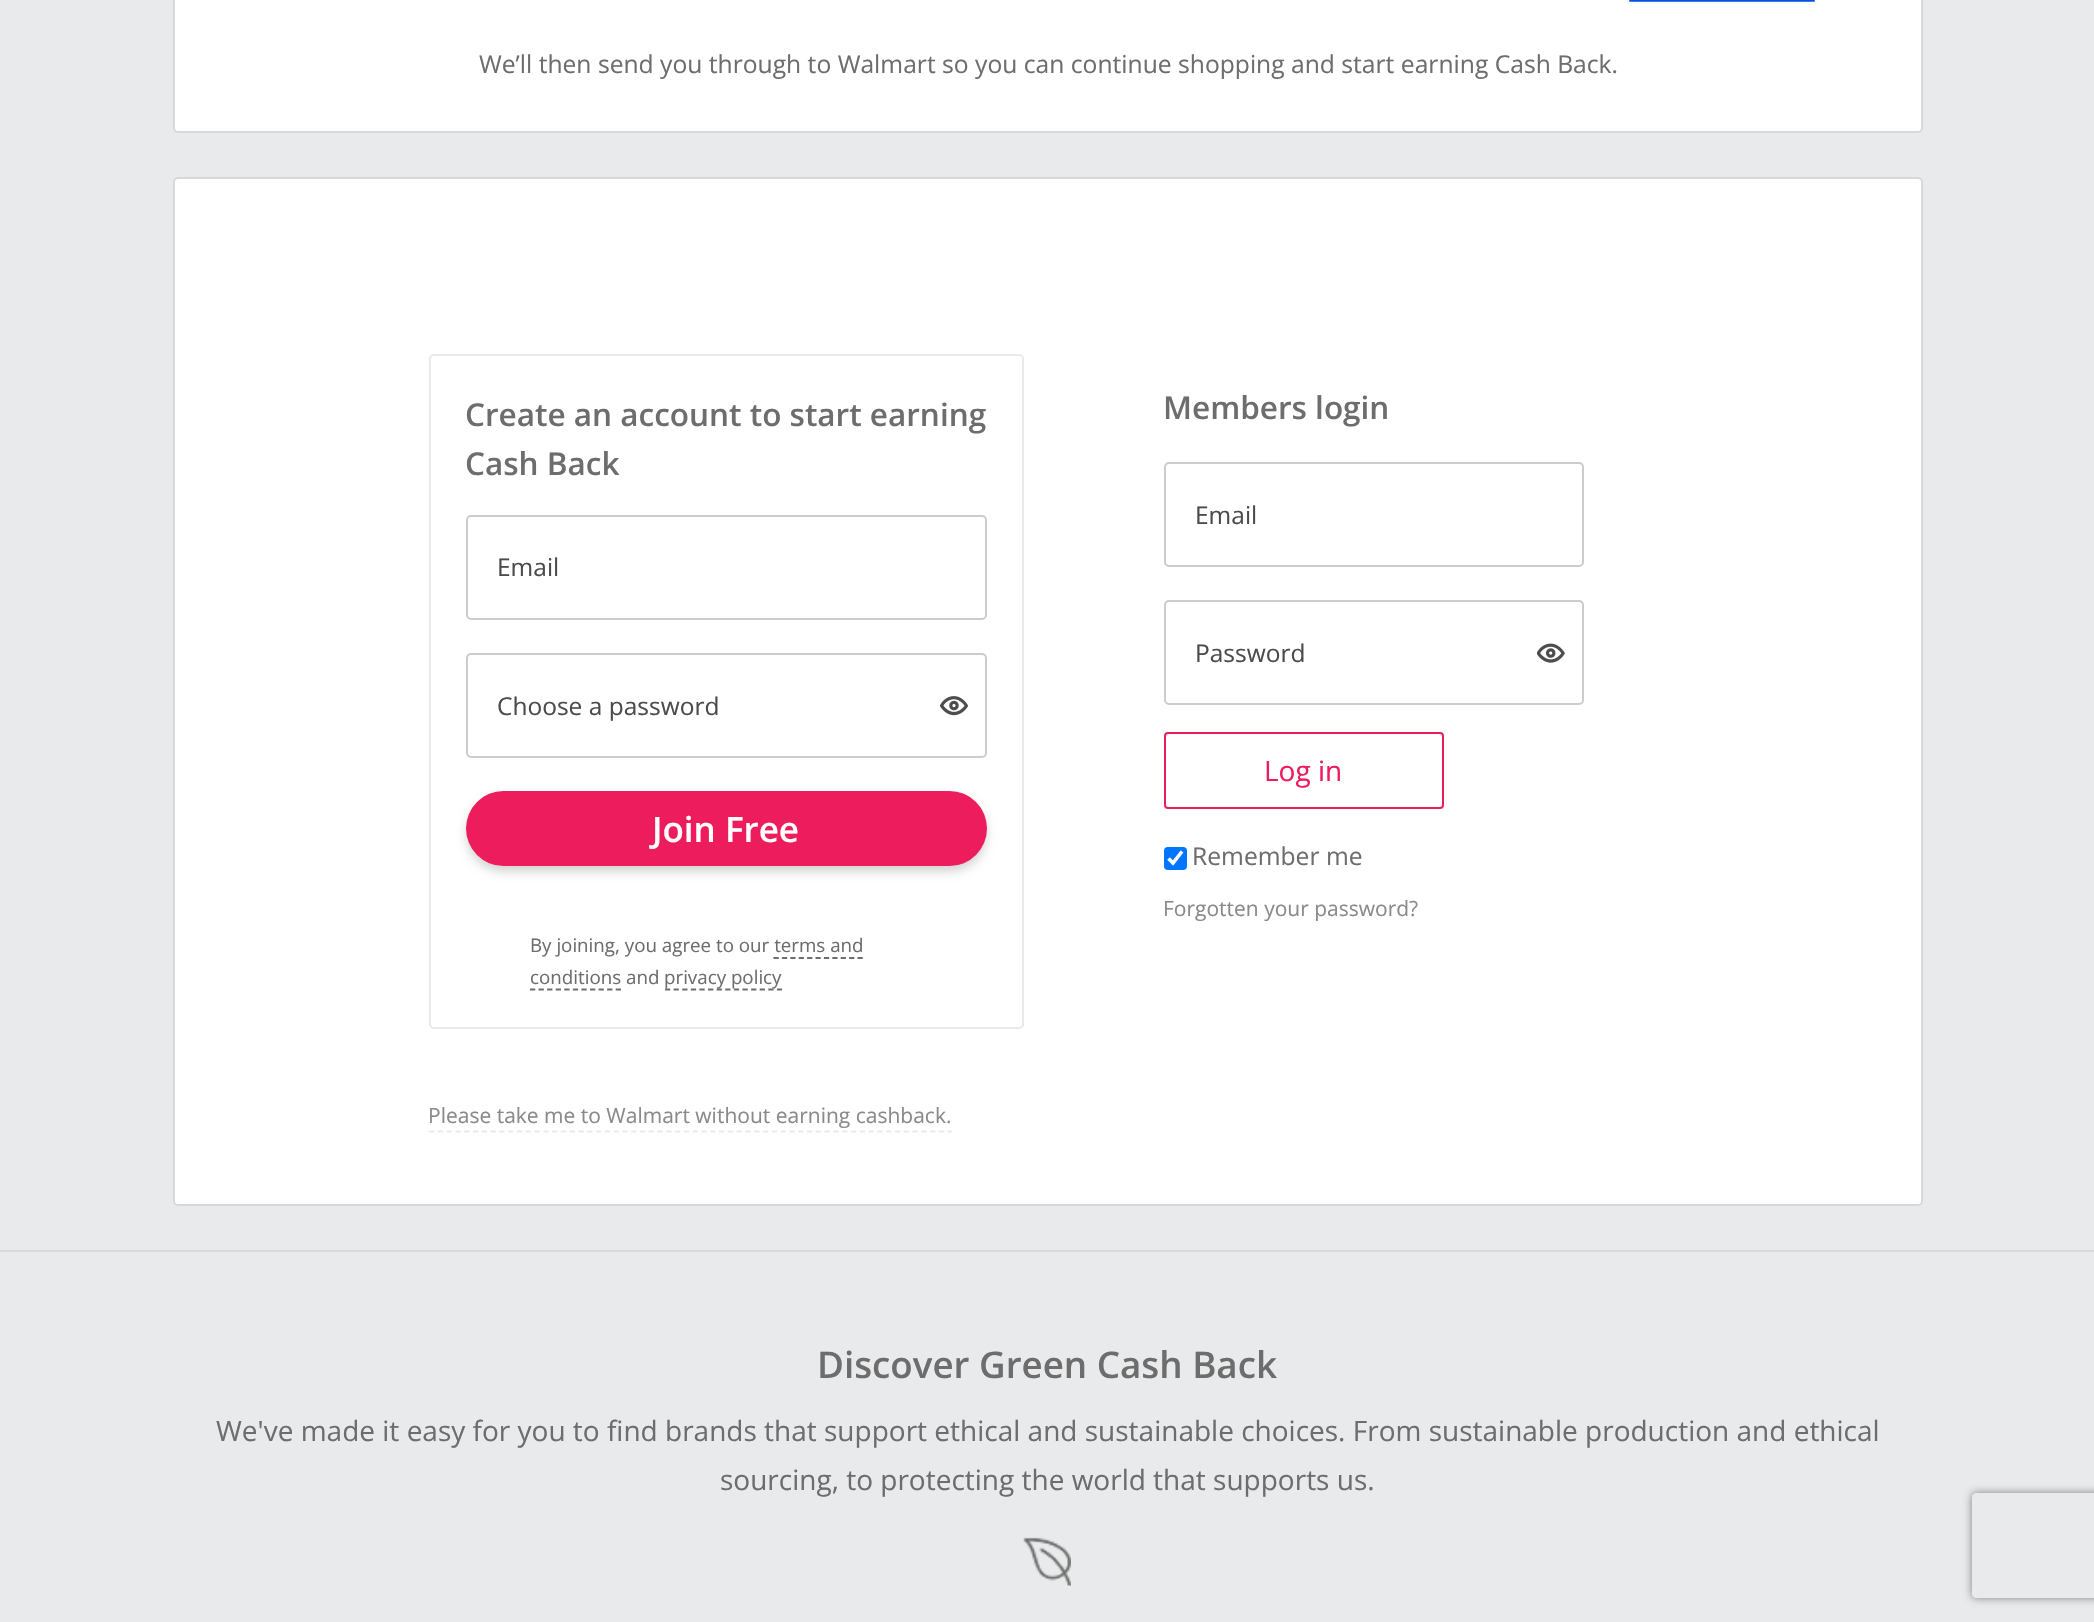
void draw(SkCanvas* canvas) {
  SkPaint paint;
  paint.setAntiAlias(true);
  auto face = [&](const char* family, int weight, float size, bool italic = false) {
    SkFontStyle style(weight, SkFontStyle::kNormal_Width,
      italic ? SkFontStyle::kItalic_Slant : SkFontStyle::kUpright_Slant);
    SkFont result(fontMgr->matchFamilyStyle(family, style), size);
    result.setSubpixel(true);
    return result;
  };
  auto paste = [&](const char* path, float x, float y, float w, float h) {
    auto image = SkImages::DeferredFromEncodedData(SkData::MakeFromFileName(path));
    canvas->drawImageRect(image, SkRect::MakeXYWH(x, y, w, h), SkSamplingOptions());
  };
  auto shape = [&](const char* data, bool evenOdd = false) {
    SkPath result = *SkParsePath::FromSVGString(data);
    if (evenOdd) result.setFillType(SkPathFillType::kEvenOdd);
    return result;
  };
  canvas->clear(0xffe9eaeb);
  paint.setColor(0xffffffff);
  canvas->drawRoundRect(SkRect::MakeXYWH(174, -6, 1748, 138), 4, 4, paint);
  paint.setStroke(true);
  paint.setStrokeWidth(2);
  paint.setColor(0xffd8d8d8);
  canvas->drawRoundRect(SkRect::MakeXYWH(174, -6, 1748, 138), 4, 4, paint);
  paste("img/1.png", 1629, 0, 186, 2);
  paint.setStroke(false);
  paint.setColor(0xffffffff);
  canvas->drawRoundRect(SkRect::MakeXYWH(174, 178, 1748, 1027), 4, 4, paint);
  paint.setStroke(true);
  paint.setColor(0xffd8d8d8);
  canvas->drawRoundRect(SkRect::MakeXYWH(174, 178, 1748, 1027), 4, 4, paint);
  paint.setColor(0xffe9eaeb);
  canvas->drawRoundRect(SkRect::MakeXYWH(430, 355, 593, 673), 4, 4, paint);
  paint.setColor(0xffcccccc);
  canvas->drawRoundRect(SkRect::MakeXYWH(467, 516, 519, 103), 4, 4, paint);
  canvas->drawRoundRect(SkRect::MakeXYWH(467, 654, 519, 103), 4, 4, paint);
  paste("img/2.png", 940, 696, 28, 20);
  paint.setStroke(false);
  paint.setColor(0x29000000);
  paint.setMaskFilter(SkMaskFilter::MakeBlur(kNormal_SkBlurStyle, 5));
  canvas->drawRoundRect(SkRect::MakeXYWH(466, 796, 521, 76), 38, 38, paint);
  paint.setMaskFilter(nullptr);
  paint.setColor(0xffed1c5c);
  canvas->drawRoundRect(SkRect::MakeXYWH(466, 791, 521, 75), 37.5f, 37.5f, paint);
  paint.setStroke(true);
  paint.setStrokeWidth(1.8f);
  paint.setColor(0xff6d6d6d);
  paint.setPathEffect(SkDashPathEffect::Make({{5.25f, 3.15f}}, 0));
  canvas->drawPath(shape("M773.5 958H863"), paint);
  paint.setPathEffect(nullptr);
  paint.setPathEffect(SkDashPathEffect::Make({{5.25f, 3.32f}}, 0));
  canvas->drawPath(shape("M530 989.5H621"), paint);
  paint.setPathEffect(nullptr);
  paint.setPathEffect(SkDashPathEffect::Make({{5.25f, 3.36f}}, 0));
  canvas->drawPath(shape("M665 989.5H782"), paint);
  paint.setPathEffect(nullptr);
  canvas->save();
  canvas->clipPath(shape("M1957 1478H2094V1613H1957ZM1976 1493H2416C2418 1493 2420 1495 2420 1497V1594C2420 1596 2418 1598 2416 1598H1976C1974 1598 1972 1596 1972 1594V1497C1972 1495 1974 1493 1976 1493Z", true), true);
  paint.setStroke(false);
  paint.setColor(0xff808080);
  paint.setMaskFilter(SkMaskFilter::MakeBlur(kNormal_SkBlurStyle, 4.5f));
  canvas->drawRoundRect(SkRect::MakeXYWH(1972, 1493, 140, 105), 4, 4, paint);
  paint.setMaskFilter(nullptr);
  canvas->restore();
  paint.setStroke(true);
  paint.setStrokeWidth(2);
  paint.setColor(0xffcccccc);
  canvas->drawRoundRect(SkRect::MakeXYWH(1165, 463, 418, 103), 4, 4, paint);
  canvas->drawRoundRect(SkRect::MakeXYWH(1165, 601, 418, 103), 4, 4, paint);
  paste("img/3.png", 1537, 643, 28, 20);
  paint.setColor(0xffed1c5c);
  canvas->drawRoundRect(SkRect::MakeXYWH(1165, 733, 278, 75), 3, 3, paint);
  paint.setStroke(false);
  paint.setColor(0xff0075ff);
  canvas->drawRoundRect(SkRect::MakeXYWH(1164, 847, 23, 23), 4, 4, paint);
  paint.setStroke(true);
  paint.setStrokeWidth(3.6f);
  paint.setColor(0xffffffff);
  canvas->drawPath(shape("M1168.5 858.5L1173 863L1182 851.5"), paint);
  paint.setStrokeWidth(1.8f);
  paint.setColor(0xffe9eaeb);
  paint.setPathEffect(SkDashPathEffect::Make({{5.25f, 3.54f}}, 0));
  canvas->drawPath(shape("M429 1131.5H952"), paint);
  paint.setPathEffect(nullptr);
  paint.setStroke(false);
  paint.setColor(0xffd8d9db);
  canvas->drawRect(SkRect::MakeXYWH(0, 1250, 2094, 2), paint);
  paste("img/4.png", 1023, 1537, 48, 49);
  auto f0 = face("Open Sans", 400, 24.65f);
  paint.setColor(0xff6d6d6d);
  canvas->drawString("We’ll then send you through to Walmart so you can continue shopping and start earning Cash Back.", 479, 73, f0, paint);
  auto f1 = face("Open Sans", 600, 31.5f);
  canvas->drawString("Create an account to start earning", 465, 426, f1, paint);
  canvas->drawString("Cash Back", 465, 475, f1, paint);
  auto f2 = face("Open Sans", 400, 24.5f);
  paint.setColor(0xff4b4b4b);
  canvas->drawString("Email", 497, 576, f2, paint);
  canvas->drawString("Choose a password", 497, 715, f2, paint);
  auto f3 = face("Open Sans", 600, 35);
  paint.setColor(0xffffffff);
  canvas->drawString("Join Free", 652, 842, f3, paint);
  auto f4 = face("Open Sans", 400, 18.75f);
  paint.setColor(0xff6d6d6d);
  {
    const struct { const char* s; float x, y; } items[] = {
      {"By joining, you agree to our terms and", 530, 952},
      {"conditions and", 530, 984},
      {"privacy policy", 664, 984},
    };
    for (auto [s, x, y] : items) {
      canvas->drawString(s, x, y, f4, paint);
    }
  }
  canvas->drawString("Members login", 1163, 419, f1, paint);
  paint.setColor(0xff4b4b4b);
  canvas->drawString("Email", 1195, 524, f2, paint);
  canvas->drawString("Password", 1195, 662, f2, paint);
  auto f5 = face("Open Sans", 400, 28);
  paint.setColor(0xffed1c5c);
  canvas->drawString("Log in", 1264, 781, f5, paint);
  paint.setColor(0xff6d6d6d);
  canvas->drawString("Remember me", 1192, 865, f0, paint);
  auto f6 = face("Open Sans", 400, 21);
  paint.setColor(0xff8a8a8a);
  canvas->drawString("Forgotten your password?", 1163, 916, f6, paint);
  canvas->drawString("Please take me to Walmart without earning cashback.", 428, 1123, f6, paint);
  auto f7 = face("Open Sans", 600, 36.75f);
  paint.setColor(0xff6d6d6d);
  canvas->drawString("Discover Green Cash Back", 817, 1378, f7, paint);
  canvas->drawString("We've made it easy for you to find brands that support ethical and sustainable choices. From sustainable production and ethical", 216, 1441, f5, paint);
  canvas->drawString("sourcing, to protecting the world that supports us.", 720, 1490, f5, paint);
}
